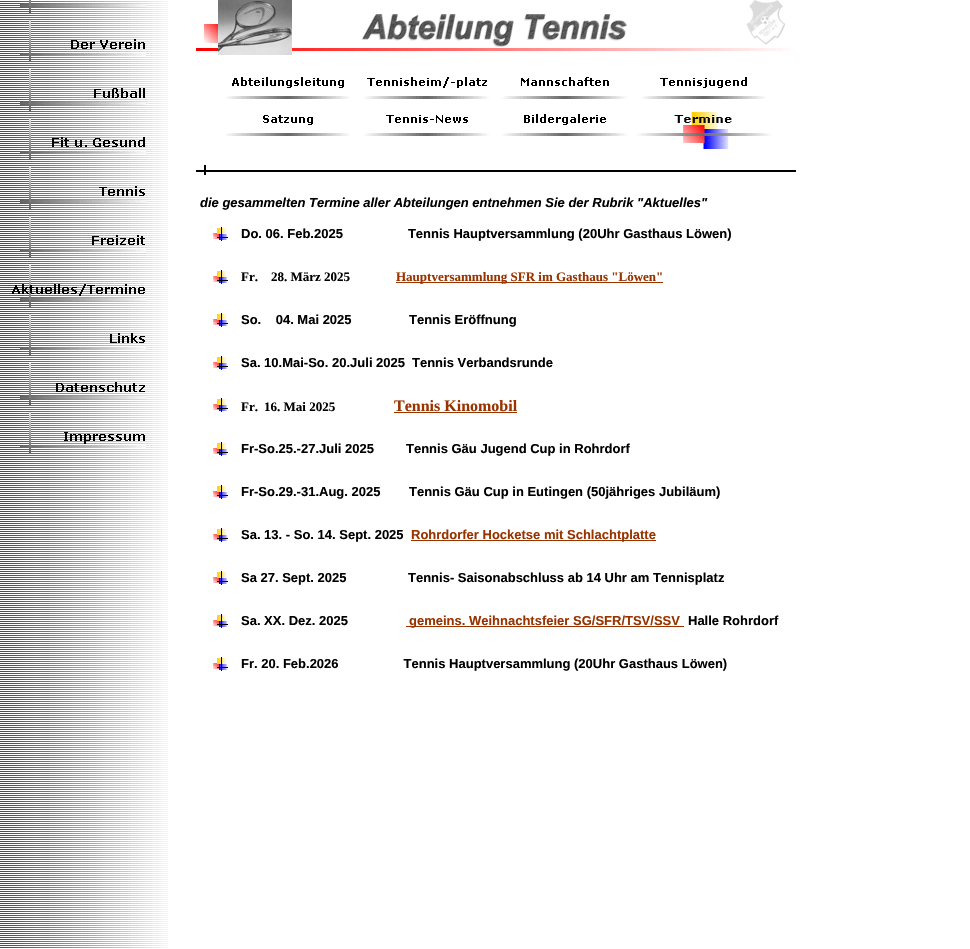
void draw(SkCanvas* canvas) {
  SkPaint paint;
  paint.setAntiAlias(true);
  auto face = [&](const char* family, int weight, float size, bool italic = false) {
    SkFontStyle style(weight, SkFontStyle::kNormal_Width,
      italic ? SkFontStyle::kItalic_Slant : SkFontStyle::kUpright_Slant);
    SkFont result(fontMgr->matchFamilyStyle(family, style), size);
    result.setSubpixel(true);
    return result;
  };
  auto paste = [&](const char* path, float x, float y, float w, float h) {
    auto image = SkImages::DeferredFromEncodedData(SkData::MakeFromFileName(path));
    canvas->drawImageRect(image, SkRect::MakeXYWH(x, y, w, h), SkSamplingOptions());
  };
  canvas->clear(0xffffffff);
  paste("img/1.png", 0, 1, 168, 947);
  paste("img/2.png", 20, 0, 126, 13);
  paste("img/3.png", 20, 20, 126, 42);
  paste("img/4.png", 20, 69, 126, 42);
  paste("img/5.png", 20, 118, 126, 42);
  paste("img/6.png", 20, 167, 126, 42);
  paste("img/7.png", 20, 216, 126, 42);
  paste("img/8.png", 12, 265, 134, 42);
  paste("img/9.png", 20, 314, 126, 42);
  paste("img/10.png", 20, 363, 126, 42);
  paste("img/11.png", 20, 412, 126, 42);
  paste("img/12.png", 196, 0, 594, 55);
  paste("img/13.png", 225, 77, 125, 22);
  paste("img/14.png", 364, 77, 125, 22);
  paste("img/15.png", 502, 77, 125, 22);
  paste("img/16.png", 641, 77, 125, 22);
  paste("img/17.png", 225, 115, 125, 21);
  paste("img/18.png", 364, 115, 125, 21);
  paste("img/19.png", 502, 114, 125, 22);
  paste("img/20.png", 637, 112, 134, 37);
  paste("img/21.png", 196, 165, 600, 10);
  paste("img/22.png", 213, 227, 15, 14);
  paste("img/22.png", 213, 270, 15, 14);
  paint.setColor(0xff993300);
  canvas->drawRect(SkRect::MakeXYWH(396, 282, 267, 1), paint);
  paste("img/22.png", 213, 313, 15, 14);
  paste("img/22.png", 213, 356, 15, 14);
  paste("img/22.png", 213, 398, 15, 14);
  canvas->drawRect(SkRect::MakeXYWH(394, 412, 123, 1), paint);
  paste("img/22.png", 213, 442, 15, 14);
  paste("img/22.png", 213, 485, 15, 14);
  paste("img/22.png", 213, 528, 15, 14);
  canvas->drawRect(SkRect::MakeXYWH(411, 540, 245, 1), paint);
  paste("img/22.png", 213, 571, 15, 14);
  paste("img/22.png", 213, 614, 15, 14);
  canvas->drawRect(SkRect::MakeXYWH(406, 626, 278, 1), paint);
  paste("img/22.png", 213, 657, 15, 14);
  auto f0 = face("Liberation Sans", 700, 13, true);
  paint.setColor(0xff000000);
  canvas->drawString("die gesammelten Termine aller Abteilungen entnehmen Sie der Rubrik \"Aktuelles\"", 200, 207, f0, paint);
  auto f1 = face("Liberation Sans", 700, 13);
  canvas->drawString("Do. 06. Feb.2025                  Tennis Hauptversammlung (20Uhr Gasthaus Löwen)", 241, 238, f1, paint);
  auto f2 = face("Liberation Serif", 700, 13);
  canvas->drawString("Fr.", 241, 281, f2, paint);
  canvas->drawString("28. März 2025", 271, 281, f2, paint);
  paint.setColor(0xff993300);
  canvas->drawString("Hauptversammlung SFR im Gasthaus \"Löwen\"", 396, 281, f2, paint);
  paint.setColor(0xff000000);
  {
    const struct { const char* s; float x, y; } items[] = {
      {"So.    04. Mai 2025", 241, 324},
      {"Tennis Eröffnung", 409, 324},
      {"Sa. 10.Mai-So. 20.Juli 2025", 241, 367},
      {"Tennis Verbandsrunde", 412, 367},
    };
    for (auto [s, x, y] : items) {
      canvas->drawString(s, x, y, f1, paint);
    }
  }
  canvas->drawString("Fr.", 241, 411, f2, paint);
  canvas->drawString("16. Mai 2025", 264, 411, f2, paint);
  auto f3 = face("Liberation Serif", 700, 16);
  paint.setColor(0xff993300);
  canvas->drawString("Tennis Kinomobil", 394, 411, f3, paint);
  paint.setColor(0xff000000);
  {
    const struct { const char* s; float x, y; } items[] = {
      {"Fr-So.25.-27.Juli 2025", 241, 453},
      {"Tennis Gäu Jugend Cup in Rohrdorf", 406, 453},
      {"Fr-So.29.-31.Aug. 2025", 241, 496},
      {"Tennis Gäu Cup in Eutingen (50jähriges Jubiläum)", 409, 496},
      {"Sa. 13. - So. 14. Sept. 2025", 241, 539},
    };
    for (auto [s, x, y] : items) {
      canvas->drawString(s, x, y, f1, paint);
    }
  }
  paint.setColor(0xff993300);
  canvas->drawString("Rohrdorfer Hocketse mit Schlachtplatte", 411, 539, f1, paint);
  paint.setColor(0xff000000);
  {
    const struct { const char* s; float x, y; } items[] = {
      {"Sa 27. Sept. 2025", 241, 582},
      {"Tennis- Saisonabschluss ab 14 Uhr am Tennisplatz", 408, 582},
      {"Sa. XX. Dez. 2025", 241, 625},
    };
    for (auto [s, x, y] : items) {
      canvas->drawString(s, x, y, f1, paint);
    }
  }
  paint.setColor(0xff993300);
  canvas->drawString("gemeins. Weihnachtsfeier SG/SFR/TSV/SSV", 409, 625, f1, paint);
  paint.setColor(0xff000000);
  canvas->drawString("Halle Rohrdorf", 688, 625, f1, paint);
  canvas->drawString("Fr. 20. Feb.2026                  Tennis Hauptversammlung (20Uhr Gasthaus Löwen)", 241, 668, f1, paint);
}
